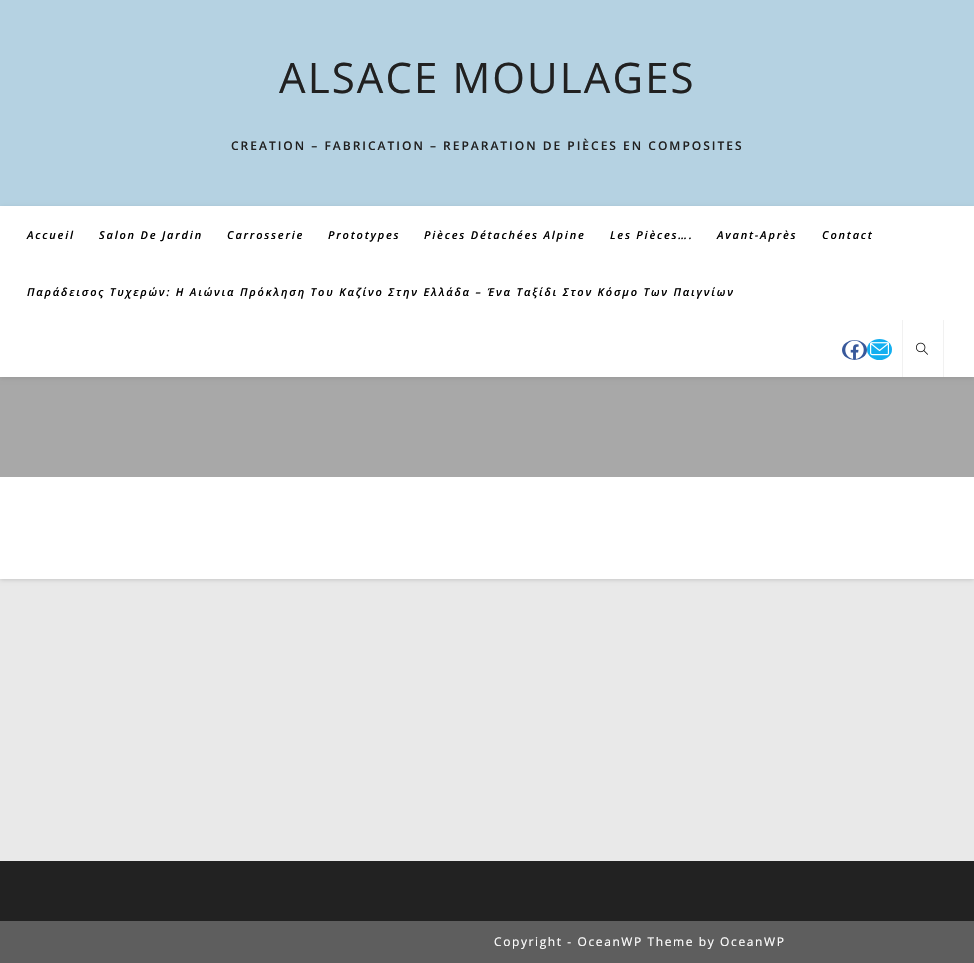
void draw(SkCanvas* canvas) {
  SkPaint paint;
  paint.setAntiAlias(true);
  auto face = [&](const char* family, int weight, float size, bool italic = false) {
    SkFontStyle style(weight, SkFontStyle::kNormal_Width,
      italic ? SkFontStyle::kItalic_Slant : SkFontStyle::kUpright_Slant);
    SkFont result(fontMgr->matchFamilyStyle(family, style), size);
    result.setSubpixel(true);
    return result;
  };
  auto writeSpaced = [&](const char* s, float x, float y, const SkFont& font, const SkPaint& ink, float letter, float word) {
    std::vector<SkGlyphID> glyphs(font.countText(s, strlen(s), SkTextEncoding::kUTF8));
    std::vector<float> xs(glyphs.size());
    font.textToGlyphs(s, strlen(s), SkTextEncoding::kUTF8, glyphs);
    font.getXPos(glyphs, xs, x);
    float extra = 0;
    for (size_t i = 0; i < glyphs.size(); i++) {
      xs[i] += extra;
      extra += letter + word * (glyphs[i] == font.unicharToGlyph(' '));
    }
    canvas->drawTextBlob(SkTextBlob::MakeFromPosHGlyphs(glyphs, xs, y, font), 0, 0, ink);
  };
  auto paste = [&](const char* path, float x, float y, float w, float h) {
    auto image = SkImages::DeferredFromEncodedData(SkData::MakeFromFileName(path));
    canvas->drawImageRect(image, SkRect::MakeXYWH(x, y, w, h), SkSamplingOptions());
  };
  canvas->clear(0xffe9e9e9);
  paint.setColor(0x26000000);
  paint.setMaskFilter(SkMaskFilter::MakeBlur(kNormal_SkBlurStyle, 2));
  canvas->drawRect(SkRect::MakeXYWH(0, 1, 974, 579), paint);
  paint.setMaskFilter(nullptr);
  {
    const struct { float x, y, w, h; SkColor color; } items[] = {
      {0, 477, 974, 102, 0xffffffff},
      {0, 0, 974, 206, 0xffb5d2e2},
      {0, 377, 974, 100, 0xffa8a8a8},
    };
    for (auto [x, y, w, h, color] : items) {
      paint.setColor(color);
      canvas->drawRect(SkRect::MakeXYWH(x, y, w, h), paint);
    }
  }
  paint.setColor(0x1a000000);
  paint.setMaskFilter(SkMaskFilter::MakeBlur(kNormal_SkBlurStyle, 2.5f));
  canvas->drawRect(SkRect::MakeXYWH(0, 207, 974, 171), paint);
  paint.setMaskFilter(nullptr);
  paint.setColor(0xffffffff);
  canvas->drawRect(SkRect::MakeXYWH(0, 206, 974, 171), paint);
  paint.setColor(0xff37589b);
  canvas->drawOval(SkRect::MakeXYWH(842, 340, 25, 20), paint);
  paste("img/1.png", 845, 340, 19, 19);
  paint.setColor(0xff13aff0);
  canvas->drawOval(SkRect::MakeXYWH(867, 339, 25, 21), paint);
  paste("img/2.png", 870, 342, 19, 14);
  paint.setColor(0xfff1f1f1);
  canvas->drawRect(SkRect::MakeXYWH(943, 320, 1, 57), paint);
  canvas->drawRect(SkRect::MakeXYWH(902, 320, 1, 57), paint);
  paste("img/3.png", 916, 342, 12, 13);
  paint.setColor(0xff222222);
  canvas->drawRect(SkRect::MakeXYWH(0, 861, 974, 60), paint);
  paint.setColor(0xff5e5e5e);
  canvas->drawRect(SkRect::MakeXYWH(0, 921, 974, 42), paint);
  auto f0 = face("Open Sans", 400, 42);
  paint.setColor(0xff212121);
  writeSpaced("ALSACE MOULAGES", 279, 93, f0, paint, 2.1f, 0);
  auto f1 = face("Open Sans", 600, 12);
  writeSpaced("CREATION – FABRICATION – REPARATION DE PIÈCES EN COMPOSITES", 231, 150, f1, paint, 2, 0);
  auto f2 = face("Open Sans", 600, 11, true);
  paint.setColor(0xff000000);
  {
    const struct { const char* s; float x, y; } items[] = {
      {"Accueil", 27, 239},
      {"Salon De Jardin", 99, 239},
      {"Carrosserie", 227, 239},
      {"Prototypes", 328, 239},
      {"Pièces Détachées Alpine", 424, 239},
      {"Les Pièces….", 610, 239},
      {"Avant-Après", 717, 239},
      {"Contact", 822, 239},
      {"Παράδεισος Τυχερών: Η Αιώνια Πρόκληση Του Καζίνο Στην Ελλάδα – Ένα Ταξίδι Στον Κόσμο Των Παιγνίων", 27, 296},
    };
    for (auto [s, x, y] : items) {
      writeSpaced(s, x, y, f2, paint, 1.8f, 0);
    }
  }
  auto f3 = face("Open Sans", 400, 12);
  paint.setColor(0xffffffff);
  writeSpaced("Copyright - OceanWP Theme by OceanWP", 494, 946, f3, paint, 1.6f, 0);
}
